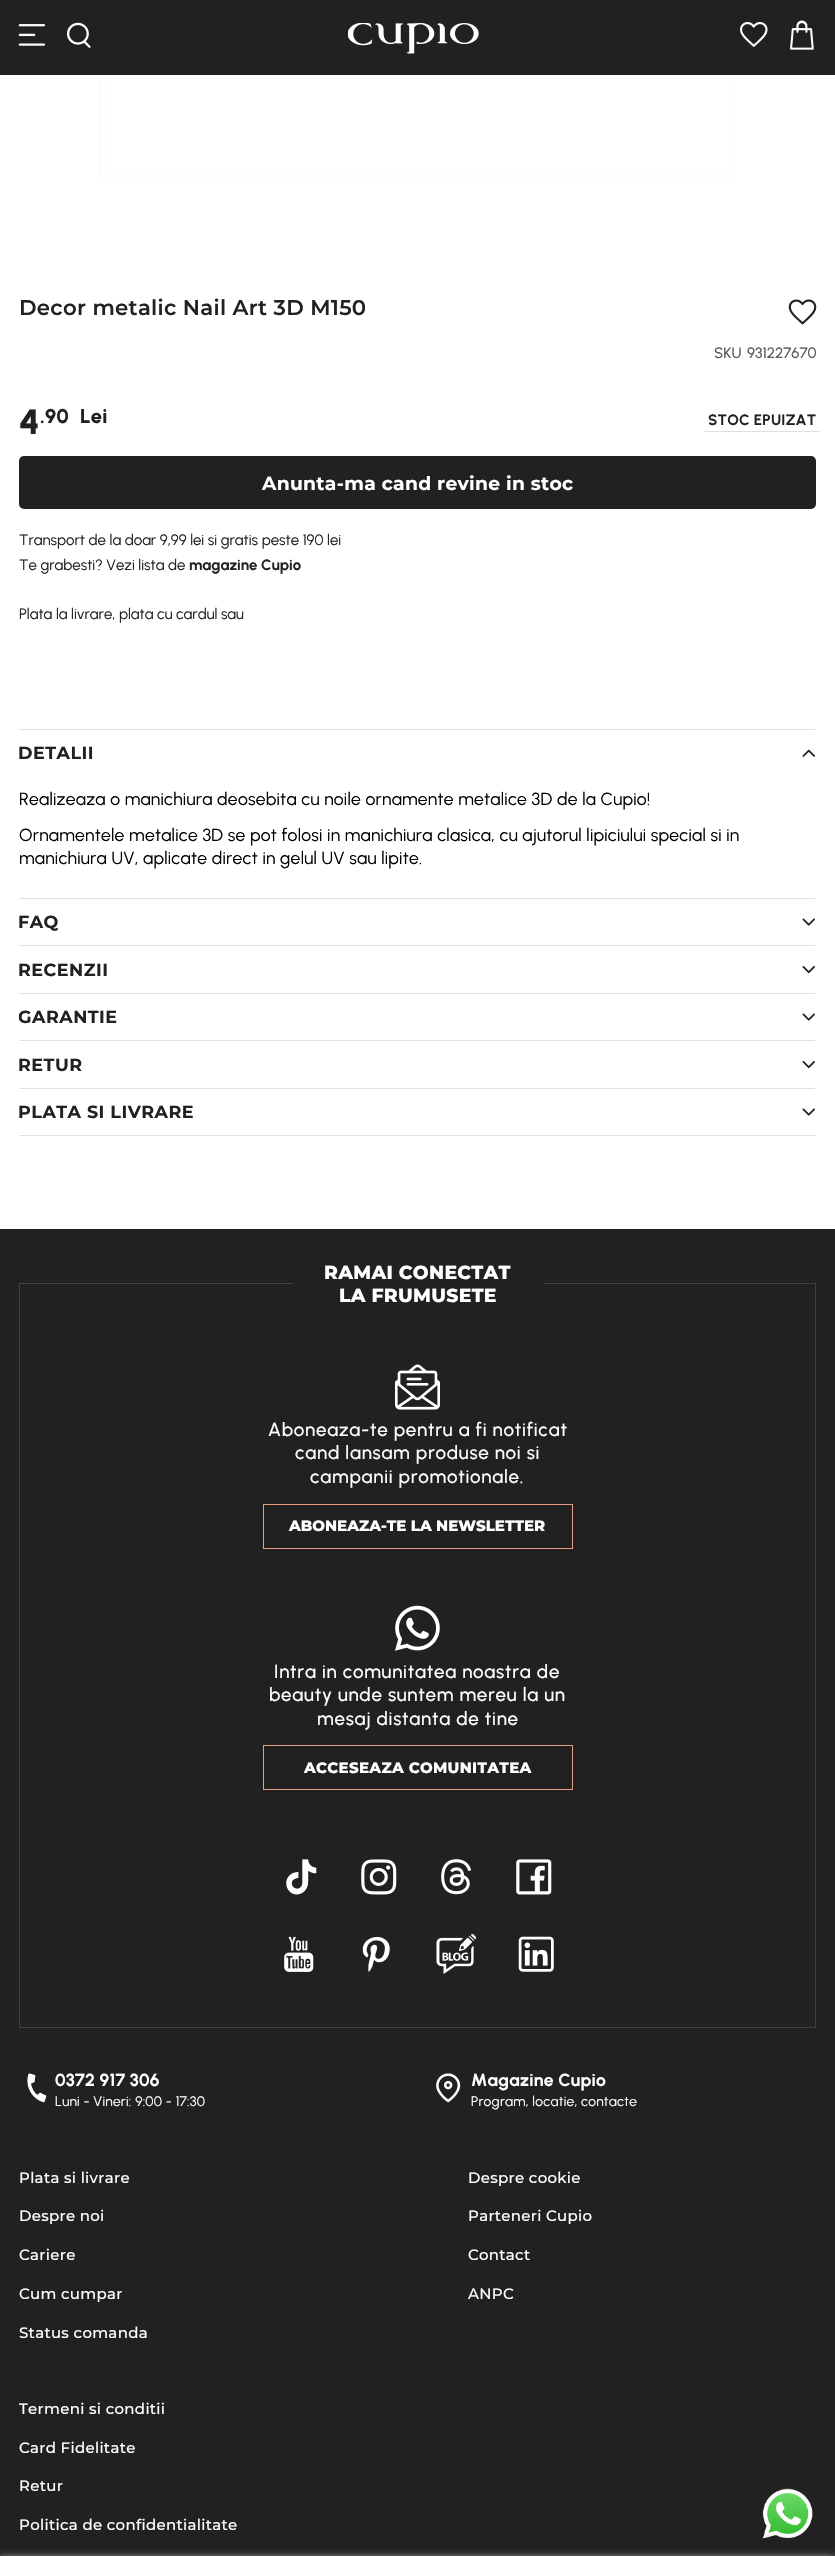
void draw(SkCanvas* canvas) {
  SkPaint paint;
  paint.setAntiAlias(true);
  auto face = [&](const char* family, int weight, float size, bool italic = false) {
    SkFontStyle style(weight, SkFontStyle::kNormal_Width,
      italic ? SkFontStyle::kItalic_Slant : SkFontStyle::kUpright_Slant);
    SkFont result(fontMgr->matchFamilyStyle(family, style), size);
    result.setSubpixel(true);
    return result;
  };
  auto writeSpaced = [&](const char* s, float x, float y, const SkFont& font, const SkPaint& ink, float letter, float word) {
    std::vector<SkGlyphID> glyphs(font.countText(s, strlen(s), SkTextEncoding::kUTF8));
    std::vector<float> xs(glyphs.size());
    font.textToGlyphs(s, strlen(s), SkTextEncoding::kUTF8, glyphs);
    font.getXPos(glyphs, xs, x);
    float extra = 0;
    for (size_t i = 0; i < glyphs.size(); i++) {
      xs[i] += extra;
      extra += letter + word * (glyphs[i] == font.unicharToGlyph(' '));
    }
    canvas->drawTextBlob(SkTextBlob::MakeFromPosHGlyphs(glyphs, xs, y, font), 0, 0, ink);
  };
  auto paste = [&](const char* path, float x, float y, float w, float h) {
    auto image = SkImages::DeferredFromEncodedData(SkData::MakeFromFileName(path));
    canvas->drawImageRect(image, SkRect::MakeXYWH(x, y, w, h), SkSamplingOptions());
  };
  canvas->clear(0xffffffff);
  paint.setColor(0xff212121);
  canvas->drawRect(SkRect::MakeXYWH(0, 0, 835, 75), paint);
  paste("img/1.png", 18, 24, 27, 22);
  paste("img/2.png", 66, 22, 25, 26);
  paste("img/3.png", 348, 23, 131, 31);
  paste("img/4.png", 740, 22, 28, 25);
  paste("img/5.png", 790, 20, 24, 30);
  paste("img/6.png", 99, 75, 637, 103);
  paste("img/7.png", 788, 299, 29, 26);
  paint.setColor(0xffe0e0e0);
  canvas->drawRect(SkRect::MakeXYWH(704, 431, 116, 1), paint);
  paint.setColor(0xff212121);
  canvas->drawRoundRect(SkRect::MakeXYWH(19, 456, 797, 53), 5, 5, paint);
  paint.setColor(0xffe0e0e0);
  canvas->drawRect(SkRect::MakeXYWH(19, 1135, 797, 1), paint);
  canvas->drawRect(SkRect::MakeXYWH(19, 729, 796, 1), paint);
  paste("img/8.png", 802, 749, 13, 8);
  canvas->drawRect(SkRect::MakeXYWH(19, 898, 796, 1), paint);
  paste("img/9.png", 802, 918, 13, 8);
  canvas->drawRect(SkRect::MakeXYWH(19, 945, 796, 1), paint);
  paste("img/10.png", 802, 966, 13, 8);
  canvas->drawRect(SkRect::MakeXYWH(19, 993, 796, 1), paint);
  paste("img/9.png", 802, 1013, 13, 8);
  canvas->drawRect(SkRect::MakeXYWH(19, 1040, 796, 1), paint);
  paste("img/10.png", 802, 1061, 13, 8);
  canvas->drawRect(SkRect::MakeXYWH(19, 1088, 796, 1), paint);
  paste("img/9.png", 802, 1108, 13, 8);
  paint.setColor(0xff212121);
  canvas->drawRect(SkRect::MakeXYWH(0, 1229, 835, 1327), paint);
  paint.setStroke(true);
  paint.setStrokeWidth(1);
  paint.setColor(0xff414141);
  canvas->drawRect(SkRect::MakeXYWH(19.5f, 1283.5f, 796, 744), paint);
  paint.setStroke(false);
  paint.setColor(0xff212121);
  canvas->drawRect(SkRect::MakeXYWH(293, 1283, 250, 1), paint);
  paste("img/11.png", 395, 1364, 45, 46);
  paint.setStroke(true);
  paint.setColor(0xffe69c85);
  canvas->drawRect(SkRect::MakeXYWH(263.5f, 1504.5f, 309, 44), paint);
  paste("img/12.png", 395, 1605, 45, 46);
  canvas->drawRect(SkRect::MakeXYWH(263.5f, 1745.5f, 309, 44), paint);
  paste("img/13.png", 286, 1859, 31, 36);
  paste("img/14.png", 361, 1859, 36, 36);
  paste("img/15.png", 441, 1859, 31, 36);
  paste("img/16.png", 516, 1859, 36, 36);
  paste("img/17.png", 284, 1936, 30, 36);
  paste("img/18.png", 362, 1936, 28, 36);
  paste("img/19.png", 436, 1934, 40, 40);
  paste("img/20.png", 518, 1936, 36, 36);
  paste("img/21.png", 27, 2073, 20, 30);
  paste("img/22.png", 436, 2073, 25, 30);
  paste("img/23.png", 762, 2488, 51, 51);
  paint.setStroke(false);
  paint.setColor(0xffd1d1d1);
  paint.setMaskFilter(SkMaskFilter::MakeBlur(kNormal_SkBlurStyle, 4));
  canvas->drawRect(SkRect::MakeXYWH(0, 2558, 835, 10), paint);
  paint.setMaskFilter(nullptr);
  auto f0 = face("Montserrat", 600, 21.25f);
  paint.setColor(0xff212121);
  writeSpaced("Decor metalic Nail Art 3D M150", 19, 315, f0, paint, 0.3f, 0);
  auto f1 = face("Urbanist", 500, 15);
  paint.setColor(0xff5b5b5b);
  canvas->drawString("SKU", 714, 358, f1, paint);
  canvas->drawString("931227670", 747, 358, f1, paint);
  auto f2 = face("Urbanist", 800, 35);
  paint.setColor(0xff212121);
  writeSpaced("4", 19, 434, f2, paint, 0.25f, 0);
  auto f3 = face("Urbanist", 800, 20);
  writeSpaced(".90", 40, 423, f3, paint, 0.25f, 0);
  writeSpaced("Lei", 80, 423, f3, paint, 0.25f, 0);
  auto f4 = face("Urbanist", 700, 15);
  writeSpaced("STOC EPUIZAT", 708, 425, f4, paint, 0.25f, 0);
  auto f5 = face("Montserrat", 700, 18.75f);
  paint.setColor(0xffffffff);
  writeSpaced("Anunta-ma cand revine in stoc", 262, 490, f5, paint, 0.3f, 0);
  auto f6 = face("Urbanist", 400, 15);
  paint.setColor(0xff212121);
  canvas->drawString("Transport de la doar 9,99 lei si gratis peste 190 lei", 19, 545, f6, paint);
  canvas->drawString("Te grabesti? Vezi lista de", 19, 570, f6, paint);
  canvas->drawString("magazine Cupio", 189, 570, f4, paint);
  canvas->drawString("Plata la livrare, plata cu cardul sau", 19, 619, f6, paint);
  auto f7 = face("Montserrat", 700, 17.5f);
  writeSpaced("DETALII", 18, 759, f7, paint, 0.5f, 0);
  auto f8 = face("Urbanist", 400, 17.5f);
  paint.setColor(0xff000000);
  {
    const struct { const char* s; float x, y; } items[] = {
      {"Realizeaza o manichiura deosebita cu noile ornamente metalice 3D de la Cupio!", 19, 805},
      {"Ornamentele metalice 3D se pot folosi in manichiura clasica, cu ajutorul lipiciului special si in", 19, 841},
      {"manichiura UV, aplicate direct in gelul UV sau lipite.", 19, 864},
    };
    for (auto [s, x, y] : items) {
      writeSpaced(s, x, y, f8, paint, 0.25f, 0);
    }
  }
  paint.setColor(0xff212121);
  writeSpaced("FAQ", 18, 928, f7, paint, 0.5f, 0);
  writeSpaced("RECENZII", 18, 976, f7, paint, 0.5f, 0);
  canvas->save();
  canvas->clipRect(SkRect::MakeXYWH(19, 729, 797, 406));
  writeSpaced("GARANTIE", 18, 1023, f7, paint, 0.5f, 0);
  canvas->restore();
  writeSpaced("RETUR", 18, 1071, f7, paint, 0.5f, 0);
  writeSpaced("PLATA SI LIVRARE", 18, 1118, f7, paint, 0.5f, 0);
  auto f9 = face("Montserrat", 800, 18.75f);
  paint.setColor(0xffffffff);
  writeSpaced("RAMAI CONECTAT", 324, 1279, f9, paint, 0.3f, 0);
  writeSpaced("LA FRUMUSETE", 339, 1302, f9, paint, 0.3f, 0);
  auto f10 = face("Urbanist", 500, 18.75f);
  {
    const struct { const char* s; float x, y; } items[] = {
      {"Aboneaza-te pentru a fi notificat", 268, 1436},
      {"cand lansam produse noi si", 295, 1459},
      {"campanii promotionale.", 310, 1483},
    };
    for (auto [s, x, y] : items) {
      writeSpaced(s, x, y, f10, paint, 0.75f, 0);
    }
  }
  auto f11 = face("Montserrat", 800, 15);
  canvas->drawString("ABONEAZA-TE LA NEWSLETTER", 289, 1531, f11, paint);
  {
    const struct { const char* s; float x, y; } items[] = {
      {"Intra in comunitatea noastra de", 274, 1678},
      {"beauty unde suntem mereu la un", 269, 1701},
      {"mesaj distanta de tine", 317, 1725},
    };
    for (auto [s, x, y] : items) {
      writeSpaced(s, x, y, f10, paint, 0.75f, 0);
    }
  }
  writeSpaced("ACCESEAZA COMUNITATEA", 304, 1773, f11, paint, 0.3f, 0);
  auto f12 = face("Urbanist", 700, 17.5f);
  writeSpaced("0372 917 306", 55, 2086, f12, paint, 0.25f, 0);
  auto f13 = face("Urbanist", 400, 13.75f);
  writeSpaced("Luni - Vineri: 9:00 - 17:30", 55, 2106, f13, paint, 0.25f, 0);
  writeSpaced("Magazine Cupio", 471, 2086, f12, paint, 0.25f, 0);
  writeSpaced("Program, locatie, contacte", 471, 2106, f13, paint, 0.25f, 0);
  auto f14 = face("Montserrat", 500, 15);
  {
    const struct { const char* s; float x, y; } items[] = {
      {"Plata si livrare", 19, 2183},
      {"Despre noi", 19, 2221},
      {"Cariere", 19, 2260},
      {"Cum cumpar", 19, 2299},
      {"Status comanda", 19, 2338},
      {"Despre cookie", 468, 2183},
      {"Parteneri Cupio", 468, 2221},
      {"Contact", 468, 2260},
      {"ANPC", 468, 2299},
      {"Termeni si conditii", 19, 2414},
      {"Card Fidelitate", 19, 2453},
      {"Retur", 19, 2491},
      {"Politica de confidentialitate", 19, 2530},
    };
    for (auto [s, x, y] : items) {
      writeSpaced(s, x, y, f14, paint, 0.3f, 0);
    }
  }
}
